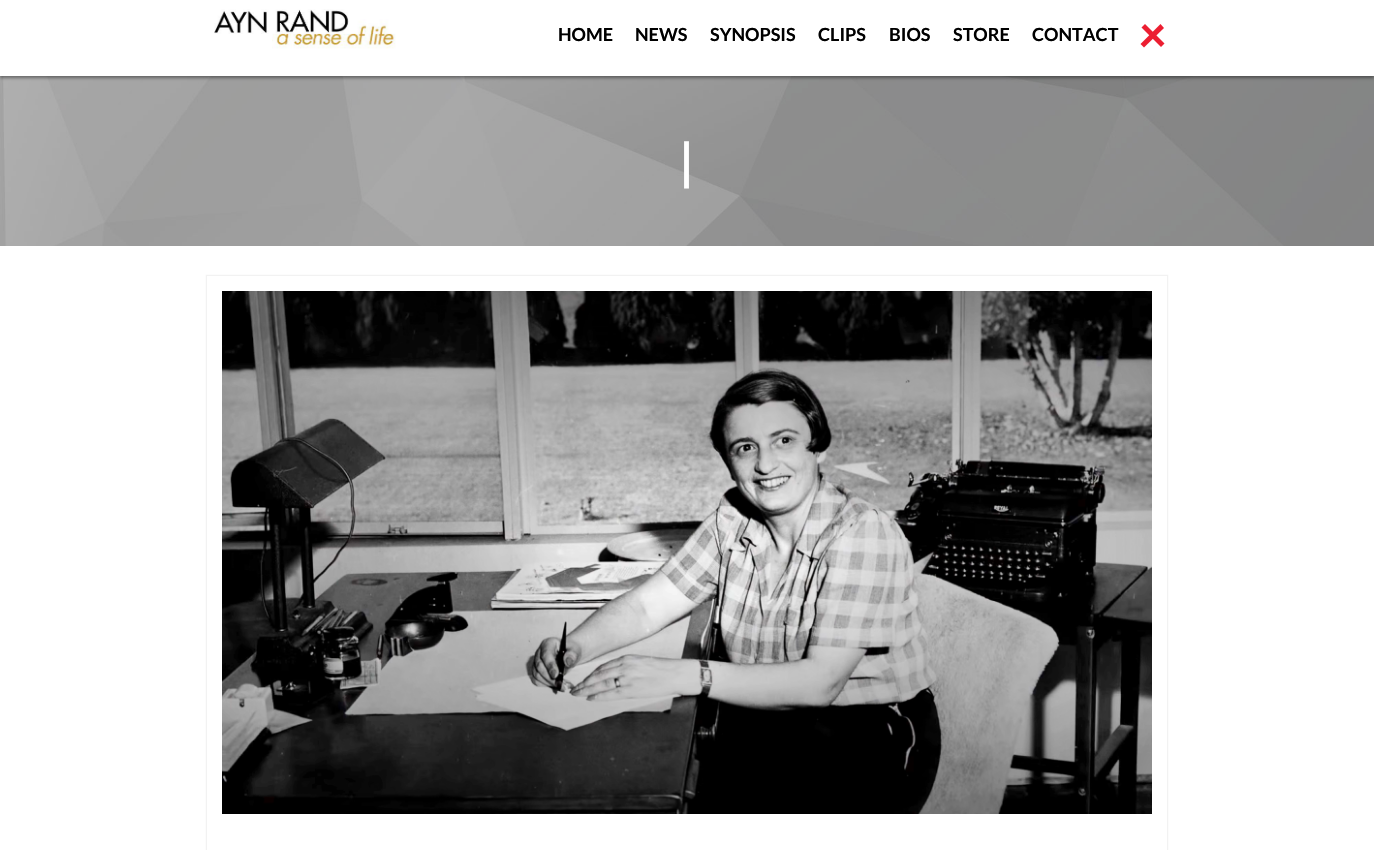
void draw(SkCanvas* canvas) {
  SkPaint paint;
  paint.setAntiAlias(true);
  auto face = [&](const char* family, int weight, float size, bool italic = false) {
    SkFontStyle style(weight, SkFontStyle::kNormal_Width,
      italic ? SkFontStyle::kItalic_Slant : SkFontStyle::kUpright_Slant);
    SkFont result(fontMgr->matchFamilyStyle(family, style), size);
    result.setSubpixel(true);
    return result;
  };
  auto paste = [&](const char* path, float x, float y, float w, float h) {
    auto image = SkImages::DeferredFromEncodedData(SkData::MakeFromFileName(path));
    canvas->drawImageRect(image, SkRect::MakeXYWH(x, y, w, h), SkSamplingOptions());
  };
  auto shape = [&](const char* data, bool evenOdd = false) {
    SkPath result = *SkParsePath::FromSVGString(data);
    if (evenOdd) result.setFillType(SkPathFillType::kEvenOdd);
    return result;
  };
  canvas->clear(0xffffffff);
  paste("img/2.png", 0, 76, 1374, 170);
  paint.setColor(0x66000000);
  paint.setMaskFilter(SkMaskFilter::MakeBlur(kNormal_SkBlurStyle, 1.5f));
  canvas->drawRect(SkRect::MakeXYWH(0, 2, 1374, 76), paint);
  paint.setMaskFilter(nullptr);
  paint.setColor(0xffffffff);
  canvas->drawRect(SkRect::MakeXYWH(0, 0, 1374, 76), paint);
  paste("img/1.png", 214, 9, 182, 40);
  paint.setColor(0xffec1e31);
  canvas->drawPath(shape("M1145 24L1164.5 43.5L1161 47L1141.5 27.5Z"), paint);
  canvas->drawPath(shape("M1140.5 44L1160.5 24L1164 28L1144 47.5Z"), paint);
  canvas->save();
  canvas->clipPath(shape("M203 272H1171V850H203ZM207 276H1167V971H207Z", true), true);
  paint.setColor(0x0d000000);
  paint.setMaskFilter(SkMaskFilter::MakeBlur(kNormal_SkBlurStyle, 0.5f));
  canvas->drawRect(SkRect::MakeXYWH(206, 275, 962, 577), paint);
  paint.setMaskFilter(nullptr);
  canvas->restore();
  paste("img/3.png", 222, 291, 930, 523);
  auto f0 = face("Lato", 700, 18);
  paint.setColor(0xff000000);
  {
    const struct { const char* s; float x, y; } items[] = {
      {"HOME", 558, 41},
      {"NEWS", 635, 41},
      {"SYNOPSIS", 710, 41},
      {"CLIPS", 818, 41},
      {"BIOS", 889, 41},
      {"STORE", 953, 41},
      {"CONTACT", 1032, 41},
    };
    for (auto [s, x, y] : items) {
      canvas->drawString(s, x, y, f0, paint);
    }
  }
  auto f1 = face("Lato", 700, 50);
  paint.setColor(0xffffffff);
  canvas->drawString("|", 679, 180, f1, paint);
}
